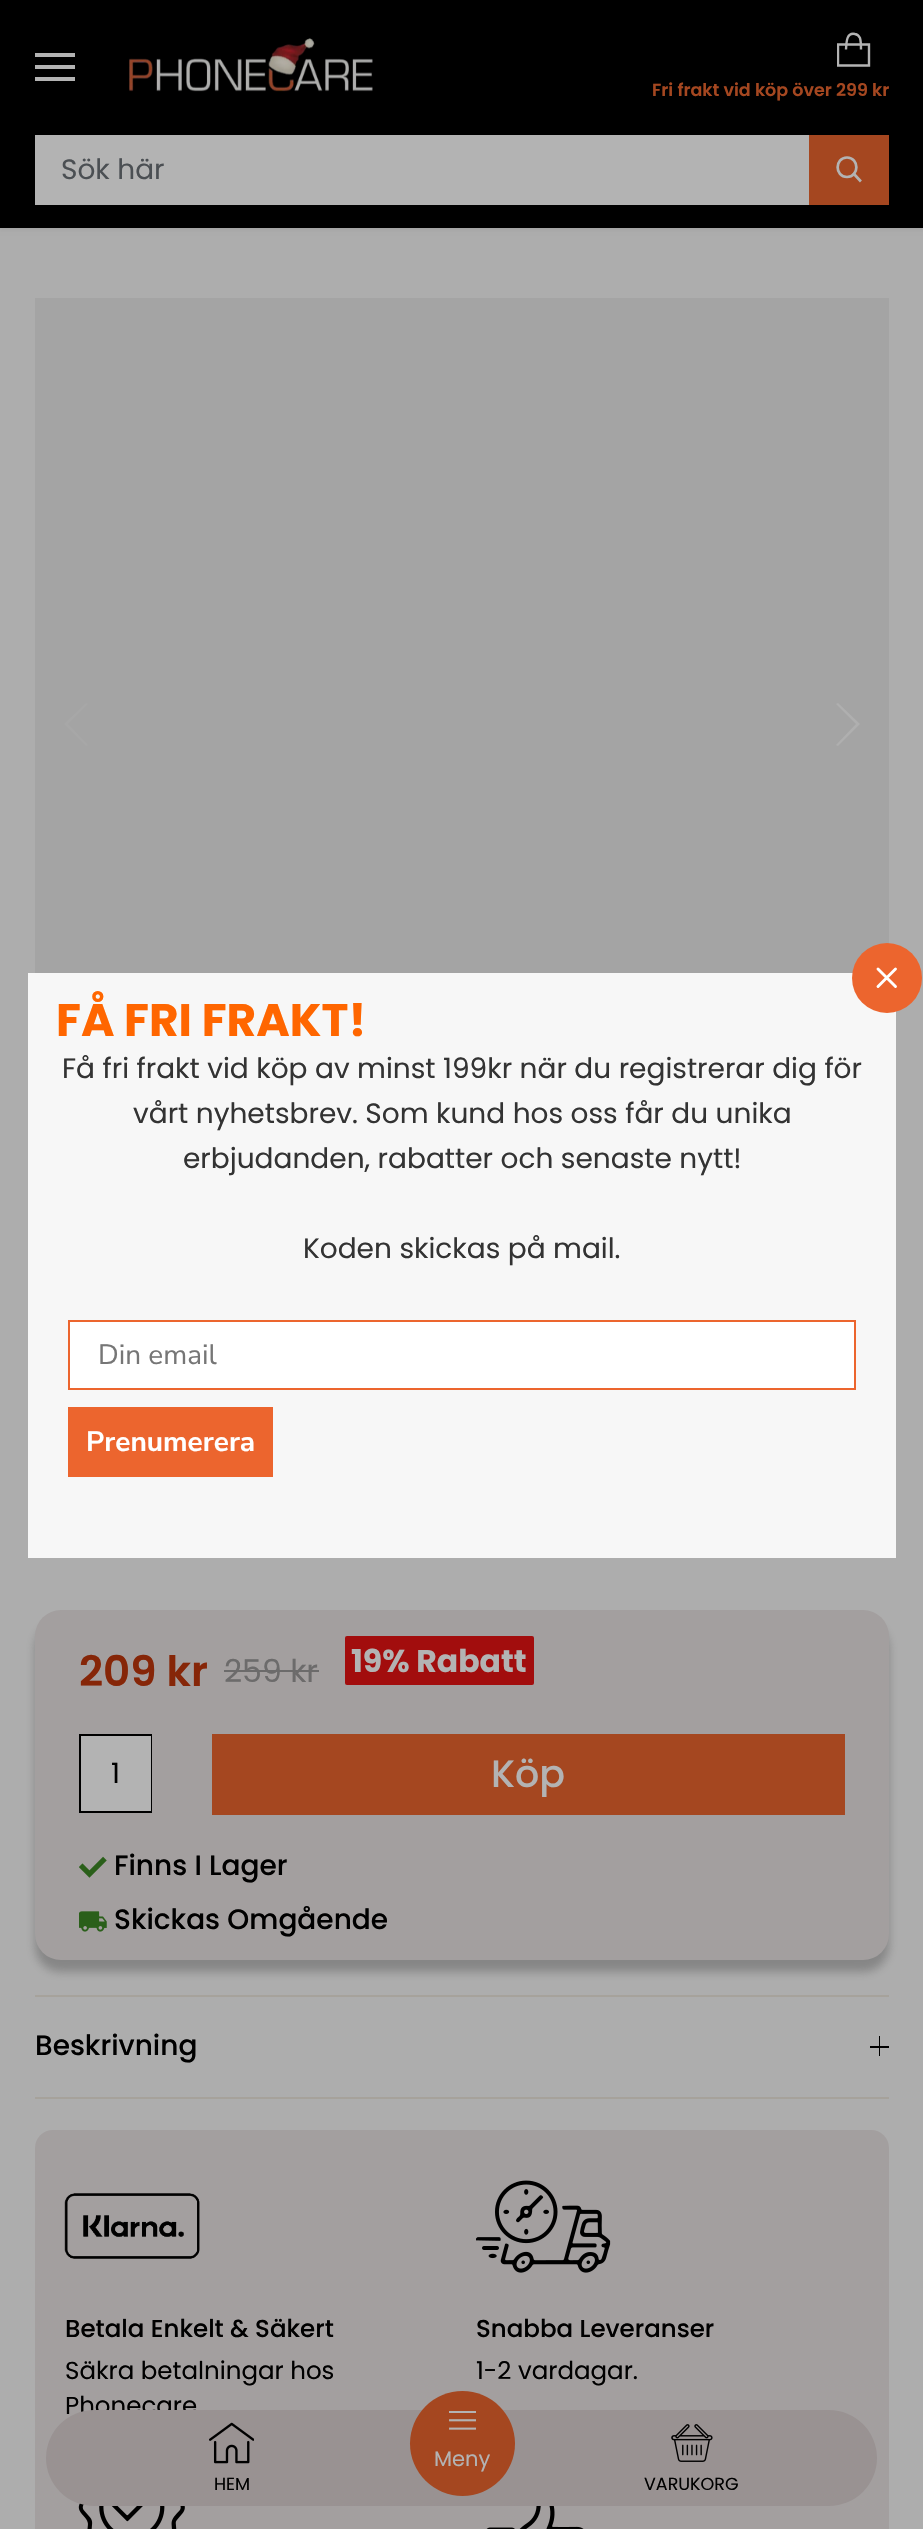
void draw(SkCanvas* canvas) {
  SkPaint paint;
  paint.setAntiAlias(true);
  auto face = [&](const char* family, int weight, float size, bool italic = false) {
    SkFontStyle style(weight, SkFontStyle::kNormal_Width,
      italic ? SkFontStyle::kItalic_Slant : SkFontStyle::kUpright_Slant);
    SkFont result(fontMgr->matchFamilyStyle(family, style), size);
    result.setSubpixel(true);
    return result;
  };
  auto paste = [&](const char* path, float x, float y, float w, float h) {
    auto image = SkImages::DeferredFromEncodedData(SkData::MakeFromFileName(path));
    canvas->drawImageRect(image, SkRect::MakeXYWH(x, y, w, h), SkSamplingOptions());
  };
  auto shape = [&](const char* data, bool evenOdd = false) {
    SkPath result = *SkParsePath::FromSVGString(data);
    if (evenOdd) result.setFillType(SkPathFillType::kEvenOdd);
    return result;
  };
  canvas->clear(0xffadadad);
  paint.setColor(0x14000000);
  paint.setMaskFilter(SkMaskFilter::MakeBlur(kNormal_SkBlurStyle, 2.5f));
  canvas->drawRect(SkRect::MakeXYWH(-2, -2, 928, 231), paint);
  paint.setMaskFilter(nullptr);
  {
    const struct { float x, y, w, h; SkColor color; } items[] = {
      {0, 0, 923, 228, 0xff000000},
      {35, 53, 40, 4, 0xffb3b3b3},
      {35, 65, 40, 4, 0xffb3b3b3},
      {35, 77, 40, 4, 0xffb3b3b3},
    };
    for (auto [x, y, w, h, color] : items) {
      paint.setColor(color);
      canvas->drawRect(SkRect::MakeXYWH(x, y, w, h), paint);
    }
  }
  paste("img/1.png", 129, 38, 244, 54);
  paint.setStroke(true);
  paint.setStrokeWidth(2.4f);
  paint.setStrokeJoin(SkPaint::kBevel_Join);
  canvas->drawPath(shape("M861 49.5C861 46 861 41.5 860 38C859 36 857.5 34.5 855 34C846 32 846.5 43.5 846 49.5"), paint);
  canvas->save();
  canvas->clipRect(SkRect::MakeXYWH(837, 32, 35, 36));
  paint.setStrokeJoin(SkPaint::kMiter_Join);
  canvas->drawPath(shape("M869 65.5V44.5H838V65.5Z"), paint);
  canvas->restore();
  paint.setStroke(false);
  canvas->drawRect(SkRect::MakeXYWH(35, 135, 774, 70), paint);
  paint.setColor(0xffa54720);
  canvas->drawRect(SkRect::MakeXYWH(809, 135, 80, 70), paint);
  paint.setStroke(true);
  paint.setStrokeWidth(2.7f);
  paint.setStrokeCap(SkPaint::kSquare_Cap);
  paint.setColor(0xffb3b3b3);
  canvas->drawPath(shape("M860 180.5L854 174"), paint);
  paint.setStrokeCap(SkPaint::kButt_Cap);
  canvas->drawPath(shape("M847 177C859.5 177 859.5 157.5 847 157.5C834.5 157.5 834.5 177 847 177Z"), paint);
  paint.setStroke(false);
  paint.setColor(0xffa4a4a4);
  canvas->drawRect(SkRect::MakeXYWH(35, 298, 854, 675), paint);
  paint.setColor(0xffa7a7a7);
  canvas->drawPath(shape("M88 704L86 703L64 724L86 746L88 745L68 724Z"), paint);
  paint.setColor(0xffafafaf);
  canvas->drawPath(shape("M838 703L836 704L856 724L836 745L838 746L860 724Z"), paint);
  paint.setColor(0x785a5a5a);
  paint.setMaskFilter(SkMaskFilter::MakeBlur(kNormal_SkBlurStyle, 5));
  canvas->drawRoundRect(SkRect::MakeXYWH(35, 1622, 854, 350), 26, 26, paint);
  paint.setMaskFilter(nullptr);
  paint.setColor(0xffa39f9f);
  canvas->drawRoundRect(SkRect::MakeXYWH(35, 1610, 854, 350), 26, 26, paint);
  paint.setColor(0xff6c6b6b);
  canvas->drawRect(SkRect::MakeXYWH(224, 1670, 95, 2), paint);
  paint.setColor(0xffa20d0d);
  canvas->drawRoundRect(SkRect::MakeXYWH(345, 1636, 189, 49), 2, 2, paint);
  paint.setStroke(true);
  paint.setStrokeWidth(2);
  paint.setColor(0xff000000);
  canvas->drawRect(SkRect::MakeXYWH(80, 1735, 71, 77), paint);
  paint.setStroke(false);
  paint.setColor(0xffb3b3b3);
  canvas->drawRect(SkRect::MakeXYWH(81, 1736, 70, 75), paint);
  paint.setColor(0xffa54720);
  canvas->drawRect(SkRect::MakeXYWH(212, 1734, 633, 81), paint);
  paste("img/2.png", 79, 1856, 28, 22);
  paste("img/3.png", 79, 1911, 28, 21);
  {
    const struct { float x, y, w, h; SkColor color; } items[] = {
      {35, 1995, 854, 2, 0xffa6a29b},
      {35, 2097, 854, 2, 0xffa6a29b},
      {879, 2036, 1, 20, 0xff000000},
      {870, 2046, 19, 2, 0xff000000},
    };
    for (auto [x, y, w, h, color] : items) {
      paint.setColor(color);
      canvas->drawRect(SkRect::MakeXYWH(x, y, w, h), paint);
    }
  }
  paint.setColor(0xffa39f9f);
  canvas->drawRoundRect(SkRect::MakeXYWH(35, 2130, 854, 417), 18, 18, paint);
  paste("img/4.png", 64, 2193, 136, 66);
  paste("img/5.png", 476, 2180, 135, 93);
  paste("img/6.png", 78, 2503, 107, 26);
  paste("img/7.png", 486, 2506, 98, 23);
  paint.setColor(0xfff7f7f7);
  canvas->drawRect(SkRect::MakeXYWH(28, 973, 868, 585), paint);
  paint.setColor(0xffec652e);
  canvas->drawCircle(887, 978, 35, paint);
  paint.setStroke(true);
  paint.setStrokeWidth(2.9f);
  paint.setStrokeCap(SkPaint::kRound_Cap);
  paint.setStrokeJoin(SkPaint::kRound_Join);
  paint.setColor(0xffffffff);
  canvas->drawPath(shape("M895.5 969L878 986.5M878 969L895.5 986.5"), paint);
  paint.setStroke(false);
  canvas->drawRect(SkRect::MakeXYWH(69, 1321, 786, 68), paint);
  paint.setStroke(true);
  paint.setStrokeWidth(2);
  paint.setStrokeCap(SkPaint::kButt_Cap);
  paint.setStrokeJoin(SkPaint::kMiter_Join);
  paint.setColor(0xffec652e);
  canvas->drawRect(SkRect::MakeXYWH(69, 1321, 786, 68), paint);
  paint.setStroke(false);
  canvas->drawRect(SkRect::MakeXYWH(68, 1407, 205, 70), paint);
  auto f0 = face("Poppins", 600, 17.5f);
  paint.setColor(0xffa54720);
  canvas->drawString("Fri frakt vid köp över 299 kr", 652, 96, f0, paint);
  auto f1 = face("Poppins", 400, 28);
  paint.setColor(0xff4b4f53);
  canvas->drawString("Sök här", 61, 179, f1, paint);
  auto f2 = face("Poppins", 600, 42);
  paint.setColor(0xff862608);
  canvas->drawString("209 kr", 79, 1686, f2, paint);
  auto f3 = face("Poppins", 400, 31.5f);
  paint.setColor(0xff6c6b6b);
  canvas->drawString("259 kr", 224, 1682, f3, paint);
  auto f4 = face("Poppins", 700, 31.5f);
  paint.setColor(0xffb3b3b3);
  canvas->drawString("19% Rabatt", 351, 1672, f4, paint);
  paint.setColor(0xff000000);
  canvas->drawString("1", 111, 1783, f1, paint);
  auto f5 = face("Poppins", 500, 38);
  paint.setColor(0xffb3b3b3);
  canvas->drawString("Köp", 491, 1787, f5, paint);
  auto f6 = face("Poppins", 500, 28);
  paint.setColor(0xff000000);
  {
    const struct { const char* s; float x, y; } items[] = {
      {"Finns I Lager", 114, 1875},
      {"Skickas Omgående", 114, 1929},
      {"Beskrivning", 35, 2055},
    };
    for (auto [s, x, y] : items) {
      canvas->drawString(s, x, y, f6, paint);
    }
  }
  auto f7 = face("Poppins", 500, 24.5f);
  canvas->drawString("Betala Enkelt & Säkert", 65, 2337, f7, paint);
  auto f8 = face("Poppins", 400, 24.5f);
  canvas->drawString("Säkra betalningar hos", 65, 2379, f8, paint);
  canvas->drawString("Phonecare", 65, 2414, f8, paint);
  canvas->drawString("Snabba Leveranser", 476, 2337, f7, paint);
  canvas->drawString("1-2 vardagar.", 476, 2379, f8, paint);
  auto f9 = face("Poppins", 700, 45.5f);
  paint.setColor(0xffff6600);
  canvas->drawString("FÅ FRI FRAKT!", 56, 1036, f9, paint);
  paint.setColor(0xff333333);
  {
    const struct { const char* s; float x, y; } items[] = {
      {"Få fri frakt vid köp av minst 199kr när du registrerar dig för", 62, 1078},
      {"vårt nyhetsbrev. Som kund hos oss får du unika", 133, 1123},
      {"erbjudanden, rabatter och senaste nytt!", 183, 1168},
      {"Koden skickas på mail.", 303, 1258},
    };
    for (auto [s, x, y] : items) {
      canvas->drawString(s, x, y, f1, paint);
    }
  }
  auto f10 = face("Nunito Sans", 400, 28);
  paint.setColor(0xff767676);
  canvas->drawString("Din email", 98, 1364, f10, paint);
  auto f11 = face("Nunito Sans", 700, 28);
  paint.setColor(0xffffffff);
  canvas->drawString("Prenumerera", 86, 1451, f11, paint);
  paint.setColor(0xff999292);
  canvas->drawRoundRect(SkRect::MakeXYWH(46, 2410, 831, 96), 48, 48, paint);
  paint.setColor(0xffa54720);
  canvas->drawCircle(462.5f, 2443.5f, 52.5f, paint);
  paste("img/8.png", 449, 2411, 27, 19);
  auto f12 = face("Poppins", 400, 21);
  paint.setColor(0xffb3b3b3);
  canvas->drawString("Meny", 434, 2466, f12, paint);
  paste("img/9.png", 209, 2422, 45, 42);
  auto f13 = face("Poppins", 400, 17.5f);
  paint.setColor(0xff000000);
  canvas->drawString("HEM", 214, 2490, f13, paint);
  paste("img/10.png", 671, 2424, 42, 38);
  canvas->drawString("VARUKORG", 644, 2490, f13, paint);
}
